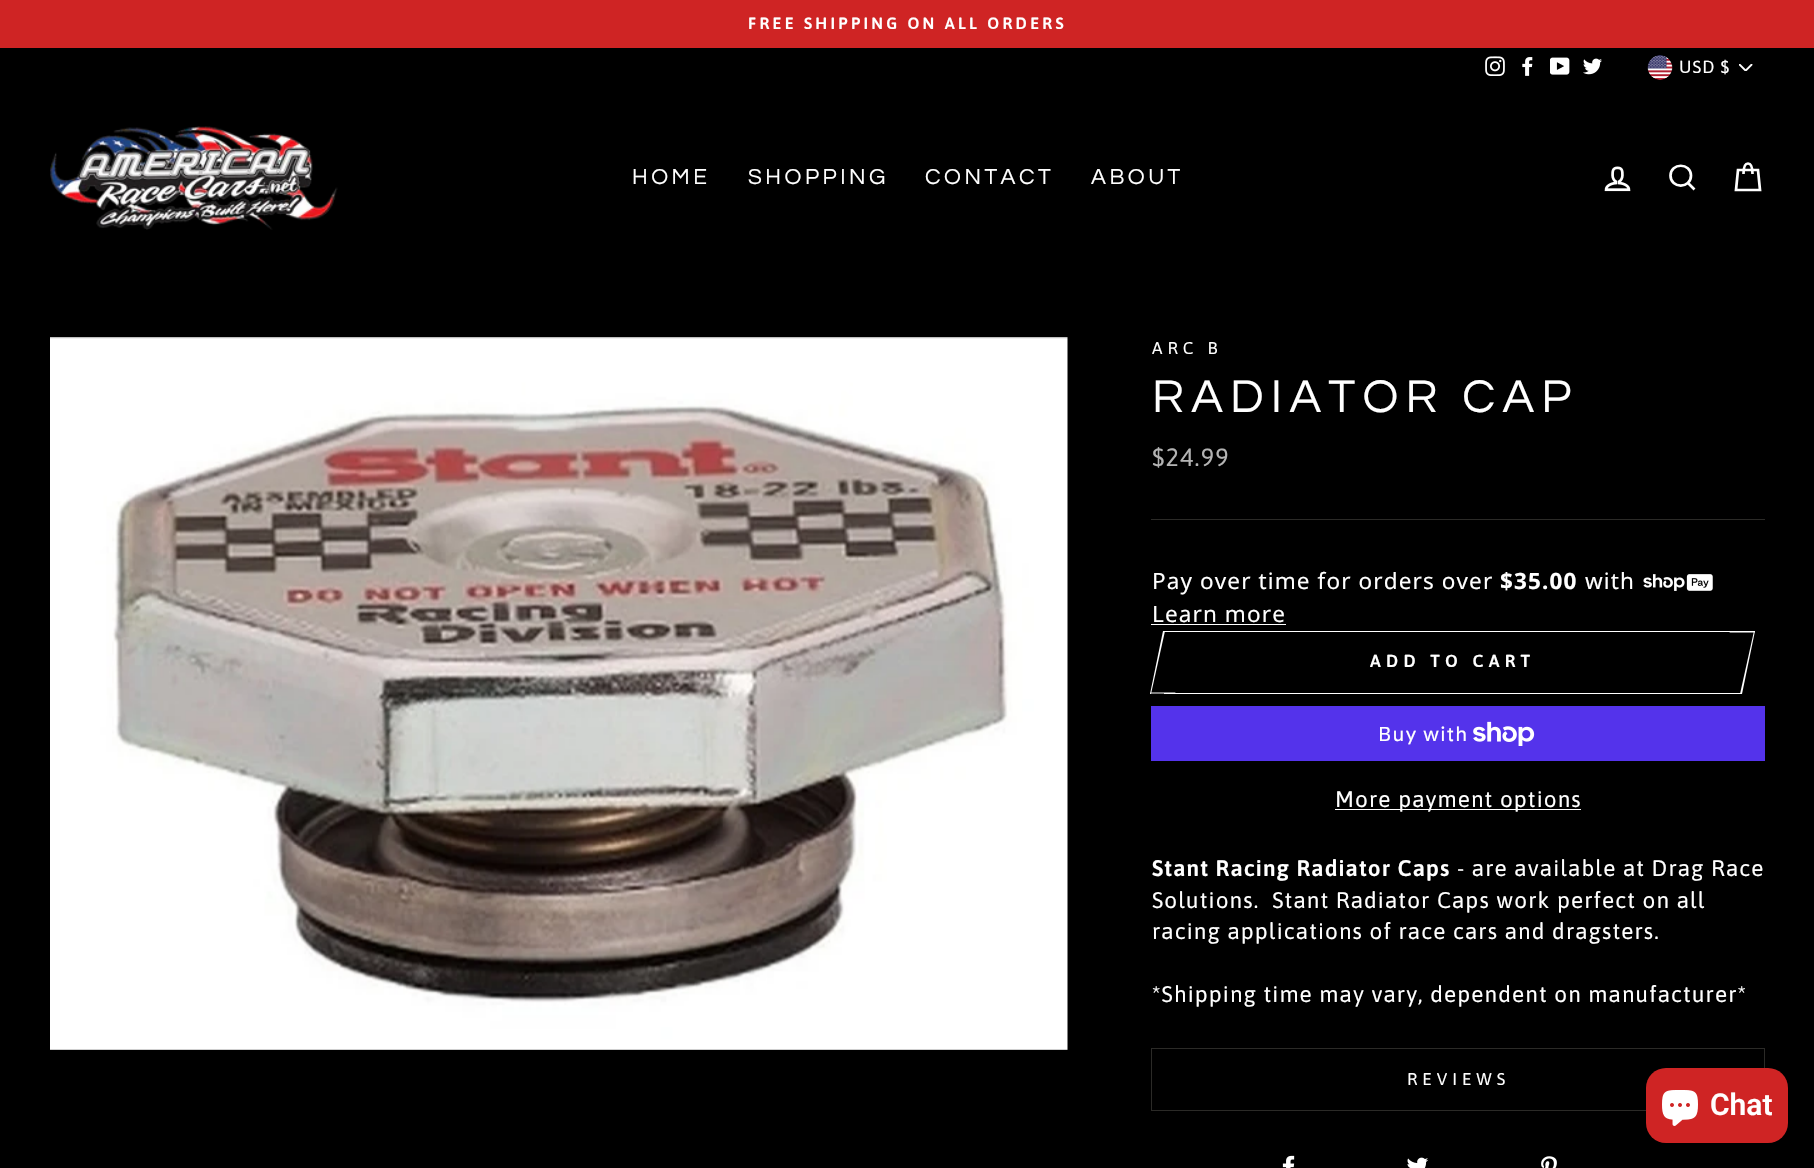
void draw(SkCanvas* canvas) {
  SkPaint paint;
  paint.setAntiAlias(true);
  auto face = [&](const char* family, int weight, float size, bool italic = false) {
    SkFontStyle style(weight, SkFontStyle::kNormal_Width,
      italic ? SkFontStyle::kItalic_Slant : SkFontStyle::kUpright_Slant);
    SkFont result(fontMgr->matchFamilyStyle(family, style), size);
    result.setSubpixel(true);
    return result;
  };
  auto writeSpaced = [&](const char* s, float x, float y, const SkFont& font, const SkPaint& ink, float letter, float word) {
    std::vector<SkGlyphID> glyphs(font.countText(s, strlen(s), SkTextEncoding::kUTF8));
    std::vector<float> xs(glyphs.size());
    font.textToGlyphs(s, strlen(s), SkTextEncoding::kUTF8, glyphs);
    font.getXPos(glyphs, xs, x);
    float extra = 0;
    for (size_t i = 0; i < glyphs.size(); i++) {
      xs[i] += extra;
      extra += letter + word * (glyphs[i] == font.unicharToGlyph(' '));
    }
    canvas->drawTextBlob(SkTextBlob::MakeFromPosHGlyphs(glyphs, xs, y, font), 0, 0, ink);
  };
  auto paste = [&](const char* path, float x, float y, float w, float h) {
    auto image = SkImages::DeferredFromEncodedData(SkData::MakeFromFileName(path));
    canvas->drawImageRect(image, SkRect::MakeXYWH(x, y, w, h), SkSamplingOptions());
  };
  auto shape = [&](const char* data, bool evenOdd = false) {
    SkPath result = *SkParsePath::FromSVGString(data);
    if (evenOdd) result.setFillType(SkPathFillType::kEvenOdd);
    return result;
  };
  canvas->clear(0xff000000);
  paint.setColor(0xffcf2424);
  canvas->drawRect(SkRect::MakeXYWH(0, 0, 1814, 48), paint);
  paste("img/1.png", 1485, 56, 20, 20);
  paste("img/2.png", 1522, 57, 11, 19);
  paste("img/3.png", 1550, 57, 20, 18);
  paste("img/4.png", 1583, 58, 19, 17);
  paste("img/5.png", 1739, 64, 14, 7);
  paste("img/6.png", 1647, 55, 26, 25);
  paste("img/7.png", 50, 126, 288, 104);
  paste("img/8.png", 1604, 166, 27, 26);
  paint.setStroke(true);
  paint.setStrokeWidth(2.7f);
  paint.setColor(0xffffffff);
  canvas->drawPath(shape("M1691 175.5C1691 189 1670.5 189 1670.5 175.5C1670.5 162.5 1691 162.5 1691 175.5ZM1694.5 189.5L1688 183"), paint);
  canvas->drawPath(shape("M1743.5 174C1743.5 165.5 1745.5 163.5 1748 163.5C1750.5 163.5 1752.5 165.5 1752.5 174M1738 170H1758L1760 190H1736Z"), paint);
  paste("img/9.png", 50, 337, 1018, 713);
  paint.setStroke(false);
  paint.setColor(0xff2b2a27);
  canvas->drawRect(SkRect::MakeXYWH(1151, 519, 614, 1), paint);
  paste("img/10.png", 1643, 574, 70, 17);
  {
    const struct { float x, y, w, h; SkColor color; } items[] = {
      {1151, 624, 135, 1, 0xffffffff},
      {1164, 631, 566, 1, 0xffffffff},
      {1164, 693, 577, 1, 0xffffffff},
    };
    for (auto [x, y, w, h, color] : items) {
      paint.setColor(color);
      canvas->drawRect(SkRect::MakeXYWH(x, y, w, h), paint);
    }
  }
  canvas->drawPath(shape("M1150.5 692.5H1175.5L1175 693.5H1150Z"), paint);
  canvas->drawPath(shape("M1163 631H1165L1151 694H1150Z"), paint);
  canvas->drawPath(shape("M1730 631H1755L1754.5 632.5H1729.5Z"), paint);
  canvas->drawPath(shape("M1754 631H1755L1742 694H1740Z"), paint);
  paint.setColor(0xff5433eb);
  canvas->drawRect(SkRect::MakeXYWH(1151, 706, 614, 55), paint);
  paste("img/11.png", 1473, 721, 62, 25);
  {
    const struct { float x, y, w, h; SkColor color; } items[] = {
      {1335, 809, 246, 1, 0xffffffff},
      {1151, 1110, 495, 1, 0xff2b2a27},
      {1151, 1048, 614, 1, 0xff2b2a27},
      {1764, 1048, 1, 20, 0xff2b2a27},
      {1151, 1048, 1, 62, 0xff2b2a27},
    };
    for (auto [x, y, w, h, color] : items) {
      paint.setColor(color);
      canvas->drawRect(SkRect::MakeXYWH(x, y, w, h), paint);
    }
  }
  paste("img/12.png", 1282, 1155, 13, 13);
  paste("img/13.png", 1407, 1157, 22, 11);
  paste("img/14.png", 1541, 1156, 16, 12);
  paint.setColor(0xffcf2424);
  canvas->drawRoundRect(SkRect::MakeXYWH(1646, 1068, 142, 75), 20, 20, paint);
  paste("img/15.png", 1662, 1090, 36, 36);
  auto f0 = face("Asap", 600, 16.25f);
  paint.setColor(0xffffffff);
  writeSpaced("FREE SHIPPING ON ALL ORDERS", 748, 29, f0, paint, 3.25f, 0);
  auto f1 = face("Asap", 400, 17.5f);
  writeSpaced("USD $", 1679, 73, f1, paint, 1, 0);
  auto f2 = face("Questrial", 400, 22.5f);
  {
    const struct { const char* s; float x, y; } items[] = {
      {"HOME", 632, 184},
      {"SHOPPING", 748, 184},
      {"CONTACT", 925, 184},
      {"ABOUT", 1091, 184},
    };
    for (auto [s, x, y] : items) {
      writeSpaced(s, x, y, f2, paint, 3.5f, 0);
    }
  }
  auto f3 = face("Asap", 400, 17);
  writeSpaced("ARC B", 1152, 354, f3, paint, 5, 0);
  auto f4 = face("Questrial", 400, 47.75f);
  writeSpaced("RADIATOR CAP", 1152, 412, f4, paint, 7.25f, 0);
  auto f5 = face("Asap", 400, 25);
  paint.setColor(0xffb3b3b3);
  writeSpaced("$24.99", 1152, 466, f5, paint, 1.12f, 0);
  auto f6 = face("Noto Sans", 400, 22.5f);
  paint.setColor(0xffffffff);
  writeSpaced("Pay over time for orders over", 1152, 589, f6, paint, 1.12f, 0);
  auto f7 = face("Noto Sans", 700, 22.5f);
  writeSpaced("$35.00", 1500, 589, f7, paint, 1.12f, 0);
  writeSpaced("with", 1585, 589, f6, paint, 1.12f, 0);
  writeSpaced("Learn more", 1152, 622, f6, paint, 1.12f, 0);
  auto f8 = face("Asap", 600, 17.5f);
  writeSpaced("ADD TO CART", 1370, 667, f8, paint, 5.25f, 0);
  auto f9 = face("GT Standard", 400, 20);
  writeSpaced("Buy with", 1378, 741, f9, paint, 1.12f, 0);
  auto f10 = face("Asap", 400, 22.5f);
  writeSpaced("More payment options", 1335, 807, f10, paint, 1.12f, 0);
  auto f11 = face("Asap", 600, 22.5f);
  writeSpaced("Stant Racing Radiator Caps", 1152, 876, f11, paint, 1.12f, 0);
  {
    const struct { const char* s; float x, y; } items[] = {
      {"- are available at Drag Race", 1457, 876},
      {"Solutions.  Stant Radiator Caps work perfect on all", 1152, 908},
      {"racing applications of race cars and dragsters.", 1152, 939},
      {"*Shipping time may vary, dependent on manufacturer*", 1152, 1002},
    };
    for (auto [s, x, y] : items) {
      writeSpaced(s, x, y, f10, paint, 1.12f, 0);
    }
  }
  writeSpaced("REVIEWS", 1407, 1085, f3, paint, 5, 0);
  auto f12 = face("Roboto", 600, 30);
  canvas->drawString("Chat", 1710, 1115, f12, paint);
}
